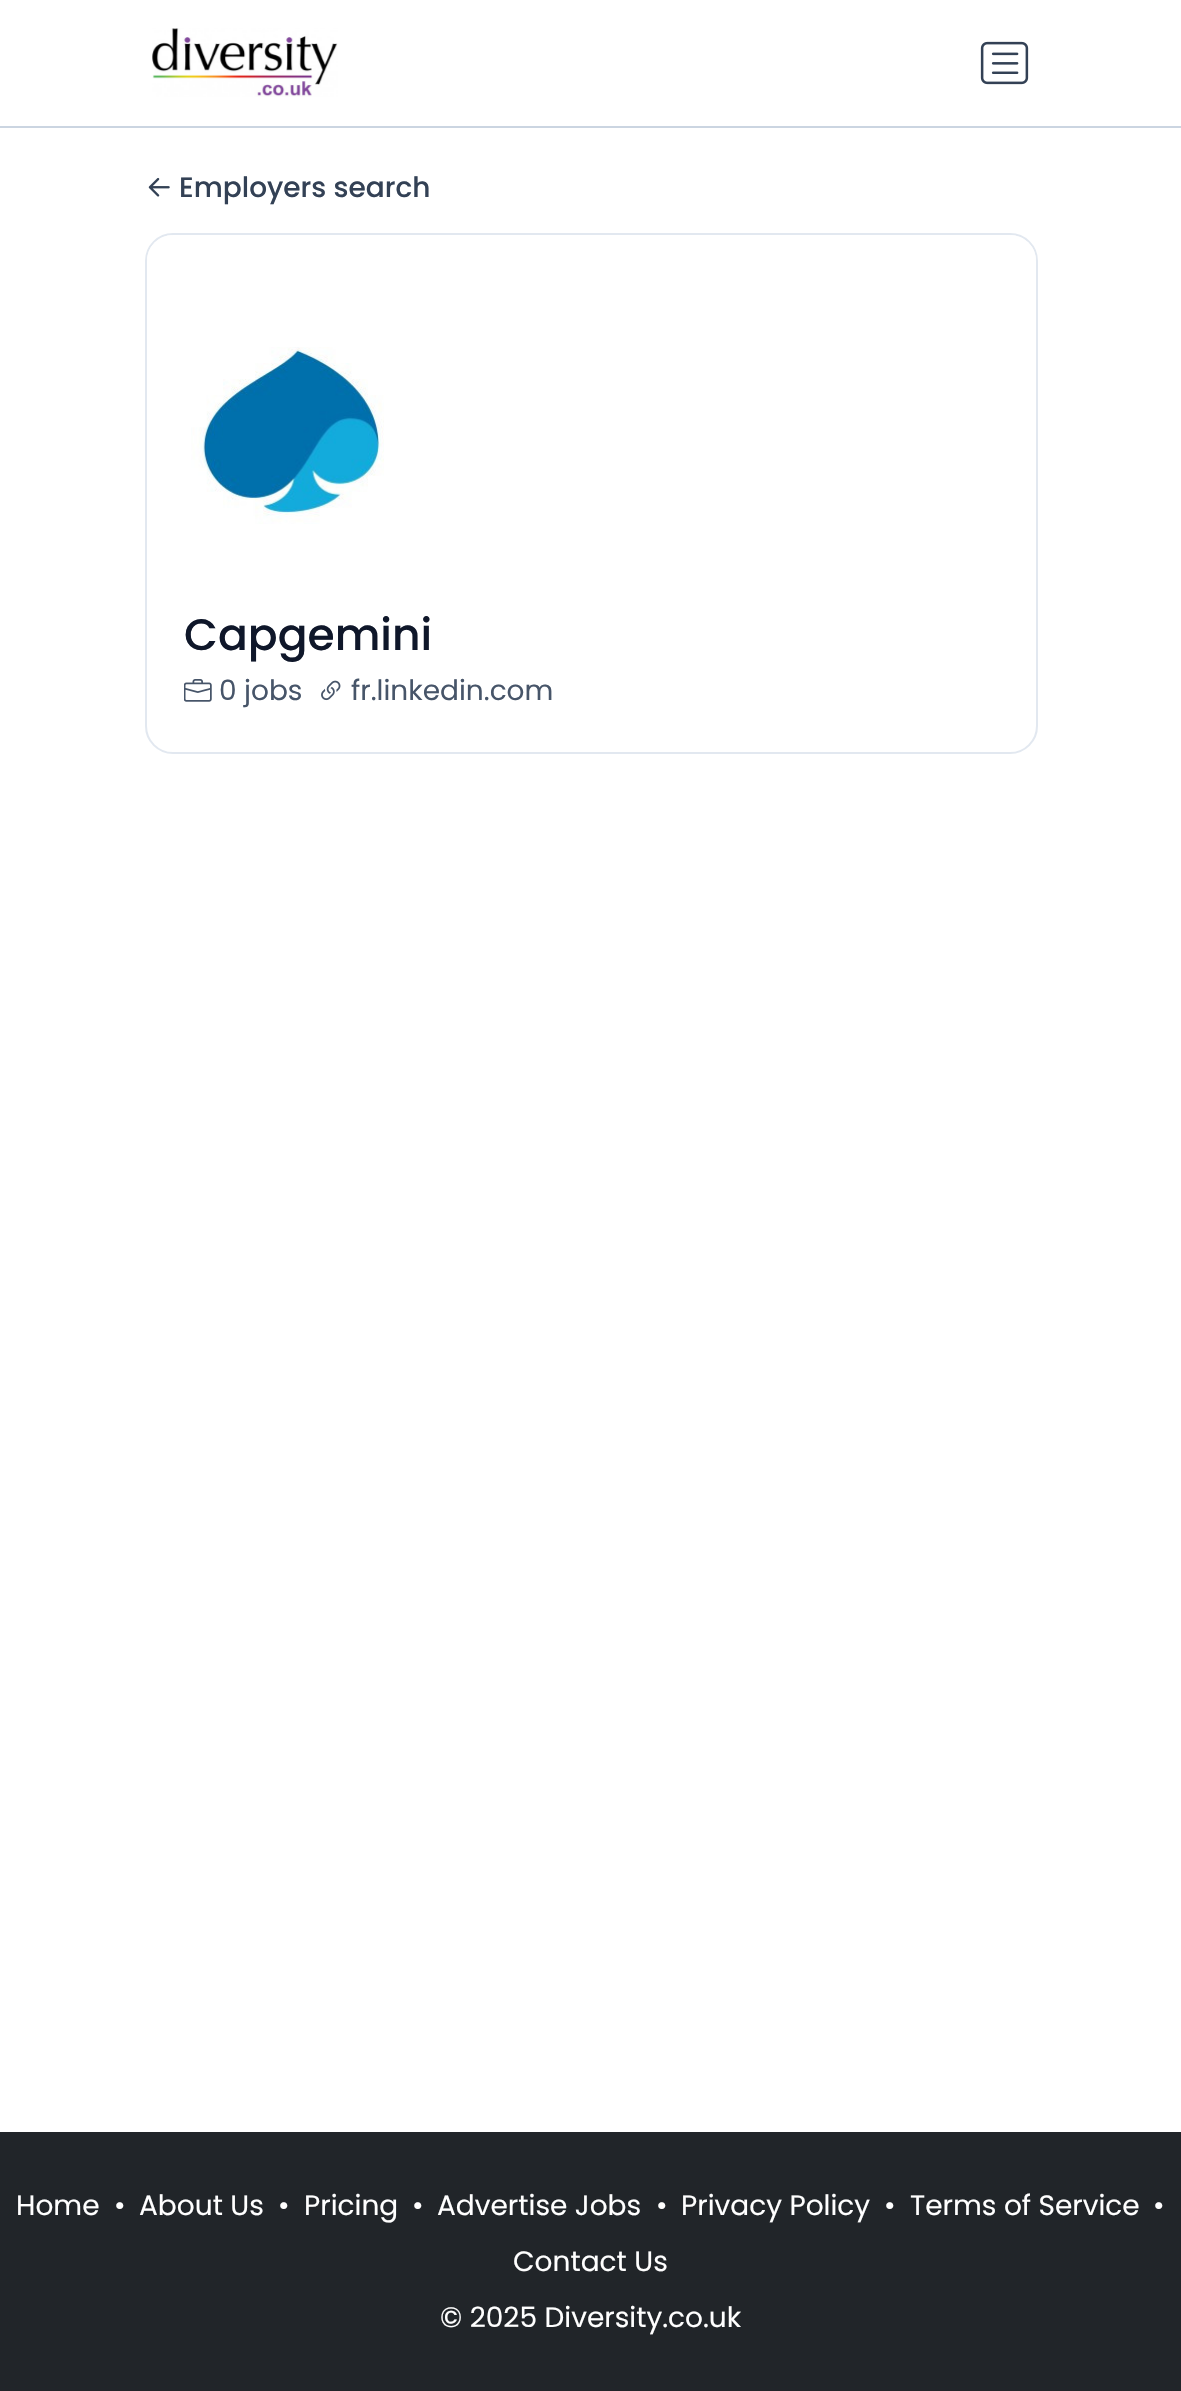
void draw(SkCanvas* canvas) {
  SkPaint paint;
  paint.setAntiAlias(true);
  auto face = [&](const char* family, int weight, float size, bool italic = false) {
    SkFontStyle style(weight, SkFontStyle::kNormal_Width,
      italic ? SkFontStyle::kItalic_Slant : SkFontStyle::kUpright_Slant);
    SkFont result(fontMgr->matchFamilyStyle(family, style), size);
    result.setSubpixel(true);
    return result;
  };
  auto paste = [&](const char* path, float x, float y, float w, float h) {
    auto image = SkImages::DeferredFromEncodedData(SkData::MakeFromFileName(path));
    canvas->drawImageRect(image, SkRect::MakeXYWH(x, y, w, h), SkSamplingOptions());
  };
  auto shape = [&](const char* data, bool evenOdd = false) {
    SkPath result = *SkParsePath::FromSVGString(data);
    if (evenOdd) result.setFillType(SkPathFillType::kEvenOdd);
    return result;
  };
  canvas->clear(0xffffffff);
  paint.setColor(0xffcbd5e1);
  canvas->drawRect(SkRect::MakeXYWH(0, 126, 1181, 2), paint);
  paste("img/1.png", 152, 28, 186, 69);
  paste("img/2.png", 980, 41, 49, 44);
  paste("img/3.png", 148, 177, 22, 20);
  paint.setStroke(true);
  paint.setStrokeWidth(2);
  paint.setColor(0xffe2e8f0);
  canvas->drawRoundRect(SkRect::MakeXYWH(146, 234, 891, 519), 27, 27, paint);
  paint.setStroke(false);
  paint.setColor(0xffffffff);
  canvas->drawPath(shape("M173 235H1010C1024.5 235 1036 246.5 1036 261V497H147V261C147 246.5 158.5 235 173 235Z"), paint);
  paste("img/4.png", 191, 347, 193, 177);
  paste("img/5.png", 184, 679, 28, 23);
  paste("img/6.png", 321, 680, 20, 21);
  paint.setColor(0xff212529);
  canvas->drawRect(SkRect::MakeXYWH(0, 2132, 1181, 259), paint);
  auto f0 = face("Poppins", 500, 28);
  paint.setColor(0xff334155);
  canvas->drawString("Employers search", 179, 197, f0, paint);
  auto f1 = face("Poppins", 500, 44);
  paint.setColor(0xff0f172a);
  canvas->drawString("Capgemini", 184, 650, f1, paint);
  auto f2 = face("Poppins", 400, 28);
  paint.setColor(0xff475569);
  canvas->drawString("0 jobs", 219, 700, f2, paint);
  canvas->drawString("fr.linkedin.com", 351, 700, f2, paint);
  paint.setColor(0xffffffff);
  {
    const struct { const char* s; float x, y; } items[] = {
      {"Home", 16, 2215},
      {"•", 114, 2215},
      {"About Us", 139, 2215},
      {"•", 278, 2215},
      {"Pricing", 304, 2215},
      {"•", 412, 2215},
      {"Advertise Jobs", 437, 2215},
      {"•", 656, 2215},
      {"Privacy Policy", 681, 2215},
      {"•", 884, 2215},
      {"Terms of Service", 910, 2215},
      {"•", 1153, 2215},
      {"Contact Us", 513, 2271},
      {"© 2025 Diversity.co.uk", 440, 2327},
    };
    for (auto [s, x, y] : items) {
      canvas->drawString(s, x, y, f2, paint);
    }
  }
}
